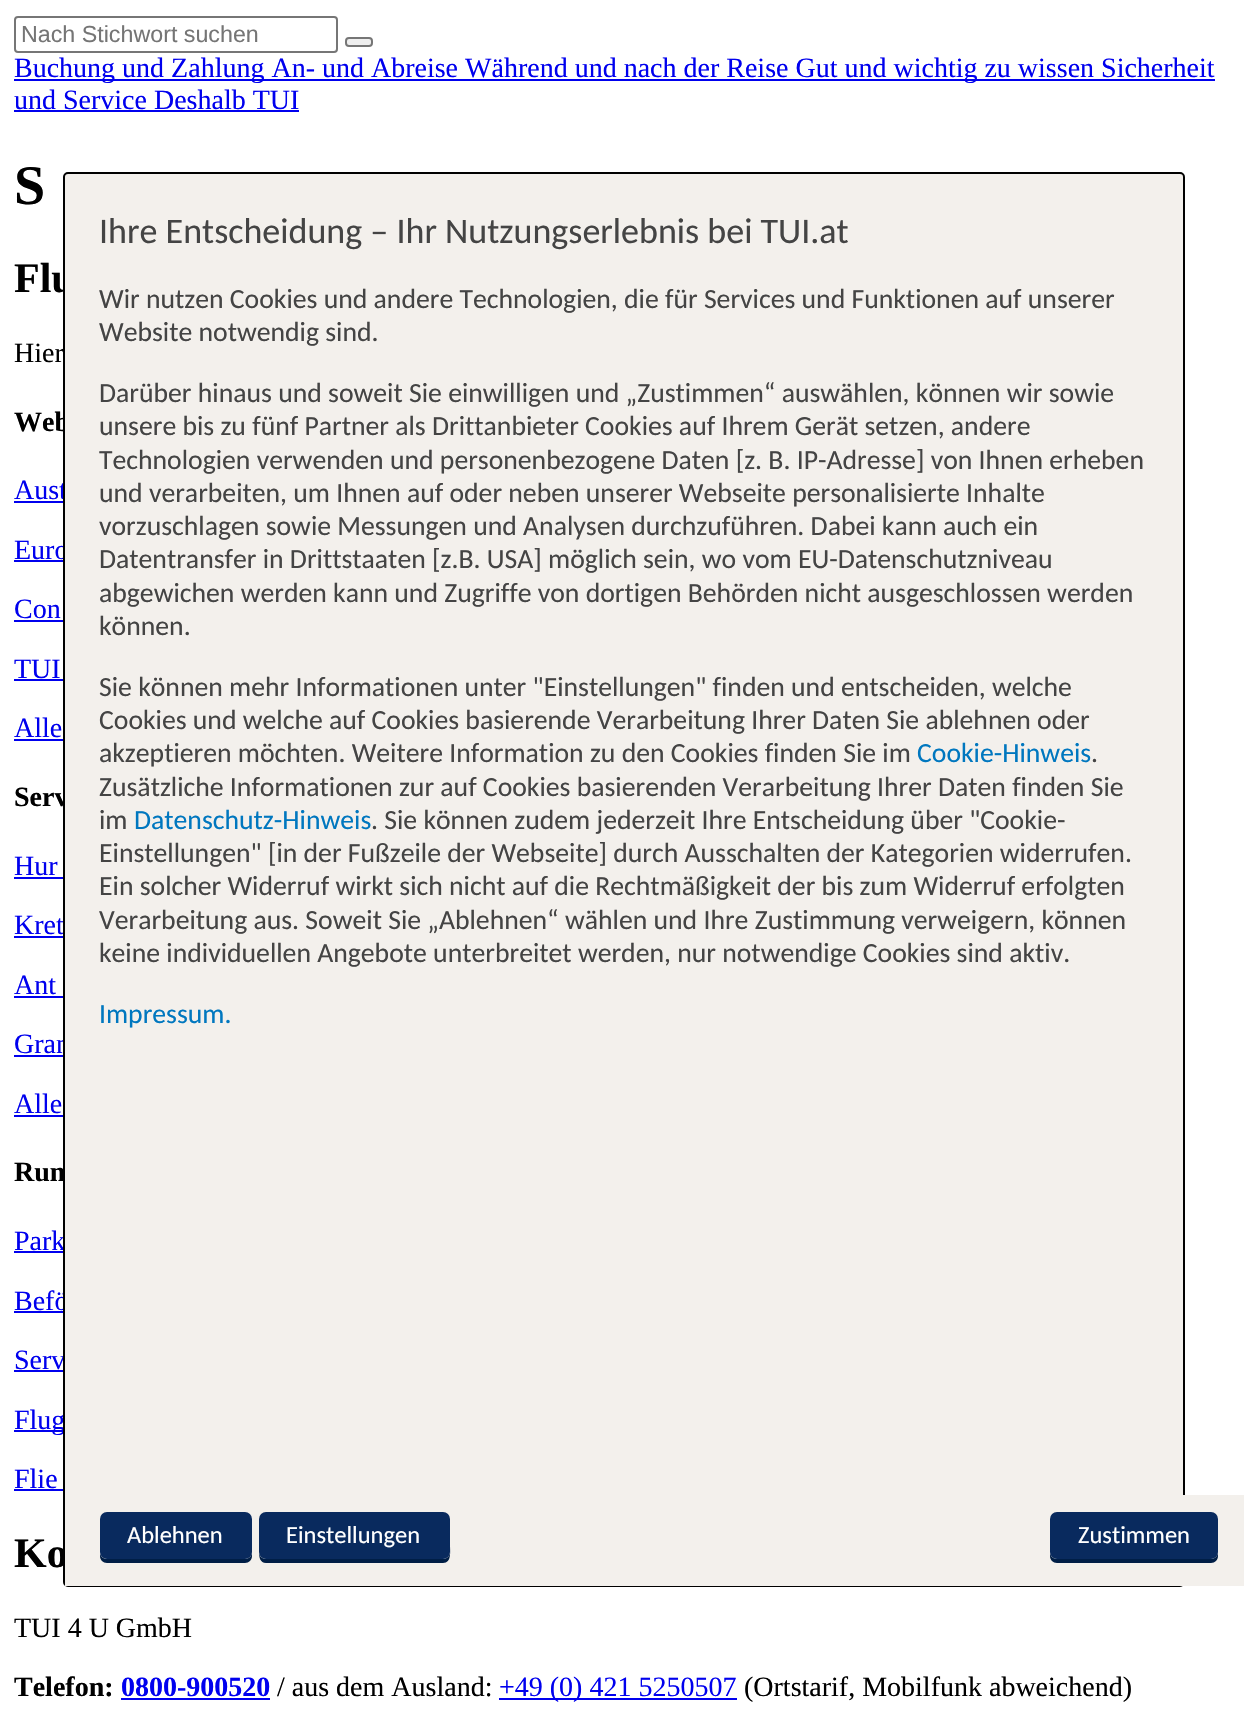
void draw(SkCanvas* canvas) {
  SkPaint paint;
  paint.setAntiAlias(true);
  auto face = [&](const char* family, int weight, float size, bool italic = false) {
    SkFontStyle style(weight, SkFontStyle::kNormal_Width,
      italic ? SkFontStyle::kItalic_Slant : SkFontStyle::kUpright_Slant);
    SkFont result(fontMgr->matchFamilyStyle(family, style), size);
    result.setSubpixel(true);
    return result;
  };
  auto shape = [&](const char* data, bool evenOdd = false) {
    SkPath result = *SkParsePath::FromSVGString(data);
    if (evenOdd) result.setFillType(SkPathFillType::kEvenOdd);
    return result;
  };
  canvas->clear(0xffffffff);
  paint.setStroke(true);
  paint.setStrokeWidth(2);
  paint.setColor(0xff767676);
  canvas->drawRoundRect(SkRect::MakeXYWH(15, 17, 322, 35), 3, 3, paint);
  paint.setStroke(false);
  paint.setColor(0xffefefef);
  canvas->drawRoundRect(SkRect::MakeXYWH(346, 38, 26, 8), 3, 3, paint);
  paint.setStroke(true);
  paint.setColor(0xff767676);
  canvas->drawRoundRect(SkRect::MakeXYWH(346, 38, 26, 8), 3, 3, paint);
  paint.setStroke(false);
  {
    const struct { float x, y, w, h; SkColor color; } items[] = {
      {14, 79, 1201, 2, 0xff0000ee},
      {14, 110, 285, 2, 0xff0000ee},
      {14, 501, 49, 2, 0xff0000ee},
      {14, 560, 49, 2, 0xff0000ee},
      {14, 620, 49, 2, 0xff0000ee},
      {14, 679, 49, 2, 0xff0000ee},
      {14, 739, 49, 2, 0xff0000ee},
      {14, 877, 49, 2, 0xff0000ee},
      {14, 936, 49, 2, 0xff0000ee},
      {14, 996, 49, 2, 0xff0000ee},
      {14, 1055, 49, 2, 0xff0000ee},
      {14, 1115, 49, 2, 0xff0000ee},
      {14, 1251, 49, 2, 0xff0000ee},
      {14, 1311, 49, 2, 0xff0000ee},
      {14, 1370, 49, 2, 0xff0000ee},
      {14, 1430, 49, 2, 0xff0000ee},
      {14, 1489, 49, 2, 0xff0000ee},
      {121, 1698, 149, 2, 0xff0000ee},
      {499, 1698, 238, 2, 0xff0000ee},
    };
    for (auto [x, y, w, h, color] : items) {
      paint.setColor(color);
      canvas->drawRect(SkRect::MakeXYWH(x, y, w, h), paint);
    }
  }
  auto f0 = face("Liberation Sans", 400, 23.25f);
  paint.setColor(0xff757575);
  canvas->drawString("Nach Stichwort suchen", 21, 42, f0, paint);
  auto f1 = face("Liberation Serif", 400, 28);
  paint.setColor(0xff0000ee);
  canvas->drawString("Buchung und Zahlung An- und Abreise Während und nach der Reise Gut und wichtig zu wissen Sicherheit", 14, 77, f1, paint);
  canvas->drawString("und Service Deshalb TUI", 14, 109, f1, paint);
  auto f2 = face("Liberation Serif", 700, 56);
  paint.setColor(0xff000000);
  canvas->drawString("S", 14, 204, f2, paint);
  auto f3 = face("Liberation Serif", 700, 42);
  canvas->drawString("Flu", 14, 292, f3, paint);
  canvas->drawString("Hier", 14, 362, f1, paint);
  auto f4 = face("Liberation Serif", 700, 28);
  canvas->drawString("Web", 14, 431, f4, paint);
  paint.setColor(0xff0000ee);
  {
    const struct { const char* s; float x, y; } items[] = {
      {"Aust", 14, 499},
      {"Euro", 14, 559},
      {"Con", 14, 618},
      {"TUI", 14, 678},
      {"Alle", 14, 737},
    };
    for (auto [s, x, y] : items) {
      canvas->drawString(s, x, y, f1, paint);
    }
  }
  paint.setColor(0xff000000);
  canvas->drawString("Serv", 14, 806, f4, paint);
  paint.setColor(0xff0000ee);
  {
    const struct { const char* s; float x, y; } items[] = {
      {"Hur", 14, 875},
      {"Kret", 14, 934},
      {"Ant", 14, 994},
      {"Gran", 14, 1053},
      {"Alle", 14, 1113},
    };
    for (auto [s, x, y] : items) {
      canvas->drawString(s, x, y, f1, paint);
    }
  }
  paint.setColor(0xff000000);
  canvas->drawString("Run", 14, 1181, f4, paint);
  paint.setColor(0xff0000ee);
  {
    const struct { const char* s; float x, y; } items[] = {
      {"Park", 14, 1250},
      {"Befö", 14, 1310},
      {"Serv", 14, 1369},
      {"Flug", 14, 1429},
      {"Flie", 14, 1488},
    };
    for (auto [s, x, y] : items) {
      canvas->drawString(s, x, y, f1, paint);
    }
  }
  paint.setColor(0xff000000);
  canvas->drawString("Ko", 14, 1567, f3, paint);
  canvas->drawString("TUI 4 U GmbH", 14, 1637, f1, paint);
  canvas->drawString("Telefon:", 14, 1696, f4, paint);
  paint.setColor(0xff0000ee);
  canvas->drawString("0800-900520", 121, 1696, f4, paint);
  paint.setColor(0xff000000);
  canvas->drawString("/ aus dem Ausland:", 277, 1696, f1, paint);
  paint.setColor(0xff0000ee);
  canvas->drawString("+49 (0) 421 5250507", 499, 1696, f1, paint);
  paint.setColor(0xff000000);
  canvas->drawString("(Ortstarif, Mobilfunk abweichend)", 744, 1696, f1, paint);
  paint.setColor(0xfff3f0ec);
  canvas->drawRoundRect(SkRect::MakeXYWH(64, 173, 1120, 1413), 4, 4, paint);
  paint.setStroke(true);
  paint.setColor(0xff000000);
  canvas->drawRoundRect(SkRect::MakeXYWH(64, 173, 1120, 1413), 4, 4, paint);
  auto f5 = face("Carlito", 400, 36);
  paint.setStroke(false);
  paint.setColor(0xff444444);
  canvas->drawString("Ihre Entscheidung – Ihr Nutzungserlebnis bei TUI.at", 99, 243, f5, paint);
  auto f6 = face("Carlito", 400, 27.7f);
  {
    const struct { const char* s; float x, y; } items[] = {
      {"Wir nutzen Cookies und andere Technologien, die für Services und Funktionen auf unserer", 99, 308},
      {"Website notwendig sind.", 99, 341},
      {"Darüber hinaus und soweit Sie einwilligen und „Zustimmen“ auswählen, können wir sowie", 99, 402},
      {"unsere bis zu fünf Partner als Drittanbieter Cookies auf Ihrem Gerät setzen, andere", 99, 435},
      {"Technologien verwenden und personenbezogene Daten [z. B. IP-Adresse] von Ihnen erheben", 99, 469},
      {"und verarbeiten, um Ihnen auf oder neben unserer Webseite personalisierte Inhalte", 99, 502},
      {"vorzuschlagen sowie Messungen und Analysen durchzuführen. Dabei kann auch ein", 99, 535},
      {"Datentransfer in Drittstaaten [z.B. USA] möglich sein, wo vom EU-Datenschutzniveau", 99, 568},
      {"abgewichen werden kann und Zugriffe von dortigen Behörden nicht ausgeschlossen werden", 99, 602},
      {"können.", 99, 635},
      {"Sie können mehr Informationen unter \"Einstellungen\" finden und entscheiden, welche", 99, 696},
      {"Cookies und welche auf Cookies basierende Verarbeitung Ihrer Daten Sie ablehnen oder", 99, 729},
      {"akzeptieren möchten. Weitere Information zu den Cookies finden Sie im", 99, 762},
    };
    for (auto [s, x, y] : items) {
      canvas->drawString(s, x, y, f6, paint);
    }
  }
  paint.setColor(0xff0077bf);
  canvas->drawString("Cookie-Hinweis", 917, 762, f6, paint);
  paint.setColor(0xff444444);
  {
    const struct { const char* s; float x, y; } items[] = {
      {".", 1091, 762},
      {"Zusätzliche Informationen zur auf Cookies basierenden Verarbeitung Ihrer Daten finden Sie", 99, 796},
      {"im", 99, 829},
    };
    for (auto [s, x, y] : items) {
      canvas->drawString(s, x, y, f6, paint);
    }
  }
  paint.setColor(0xff0077bf);
  canvas->drawString("Datenschutz-Hinweis", 134, 829, f6, paint);
  paint.setColor(0xff444444);
  {
    const struct { const char* s; float x, y; } items[] = {
      {". Sie können zudem jederzeit Ihre Entscheidung über \"Cookie-", 371, 829},
      {"Einstellungen\" [in der Fußzeile der Webseite] durch Ausschalten der Kategorien widerrufen.", 99, 862},
      {"Ein solcher Widerruf wirkt sich nicht auf die Rechtmäßigkeit der bis zum Widerruf erfolgten", 99, 895},
      {"Verarbeitung aus. Soweit Sie „Ablehnen“ wählen und Ihre Zustimmung verweigern, können", 99, 929},
      {"keine individuellen Angebote unterbreitet werden, nur notwendige Cookies sind aktiv.", 99, 962},
    };
    for (auto [s, x, y] : items) {
      canvas->drawString(s, x, y, f6, paint);
    }
  }
  paint.setColor(0xff0077bf);
  canvas->drawString("Impressum.", 99, 1023, f6, paint);
  paint.setColor(0xfff3f0ec);
  canvas->drawRect(SkRect::MakeXYWH(65, 1495, 1179, 91), paint);
  paint.setColor(0xff001e46);
  canvas->drawPath(shape("M100 1554V1556C100 1560 103 1563 107 1563H245C249 1563 252 1560 252 1556V1552C252 1556 249 1559 245 1559H107C104 1559 101 1557 100 1554Z"), paint);
  paint.setColor(0xff092a5e);
  canvas->drawRoundRect(SkRect::MakeXYWH(100, 1512, 152, 47), 7, 7, paint);
  auto f7 = face("Carlito", 400, 24.5f);
  paint.setColor(0xffffffff);
  canvas->drawString("Ablehnen", 127, 1543, f7, paint);
  paint.setColor(0xff001e46);
  canvas->drawPath(shape("M259 1552C259 1557 260 1563 266 1563H443C452 1563 450 1551 450 1545V1521V1552C450 1556 447 1559 443 1559H266C262 1559 259 1556 259 1552Z"), paint);
  paint.setColor(0xff092a5e);
  canvas->drawRoundRect(SkRect::MakeXYWH(259, 1512, 191, 47), 7, 7, paint);
  paint.setColor(0xffffffff);
  canvas->drawString("Einstellungen", 286, 1543, f7, paint);
  paint.setColor(0xff001e46);
  canvas->drawPath(shape("M1050 1552V1556C1050 1560 1053 1563 1057 1563H1211C1215 1563 1218 1560 1218 1556V1552C1218 1556 1215 1559 1211 1559H1057C1053 1559 1050 1556 1050 1552Z"), paint);
  paint.setColor(0xff092a5e);
  canvas->drawRoundRect(SkRect::MakeXYWH(1050, 1512, 168, 47), 7, 7, paint);
  paint.setColor(0xffffffff);
  canvas->drawString("Zustimmen", 1078, 1543, f7, paint);
}
